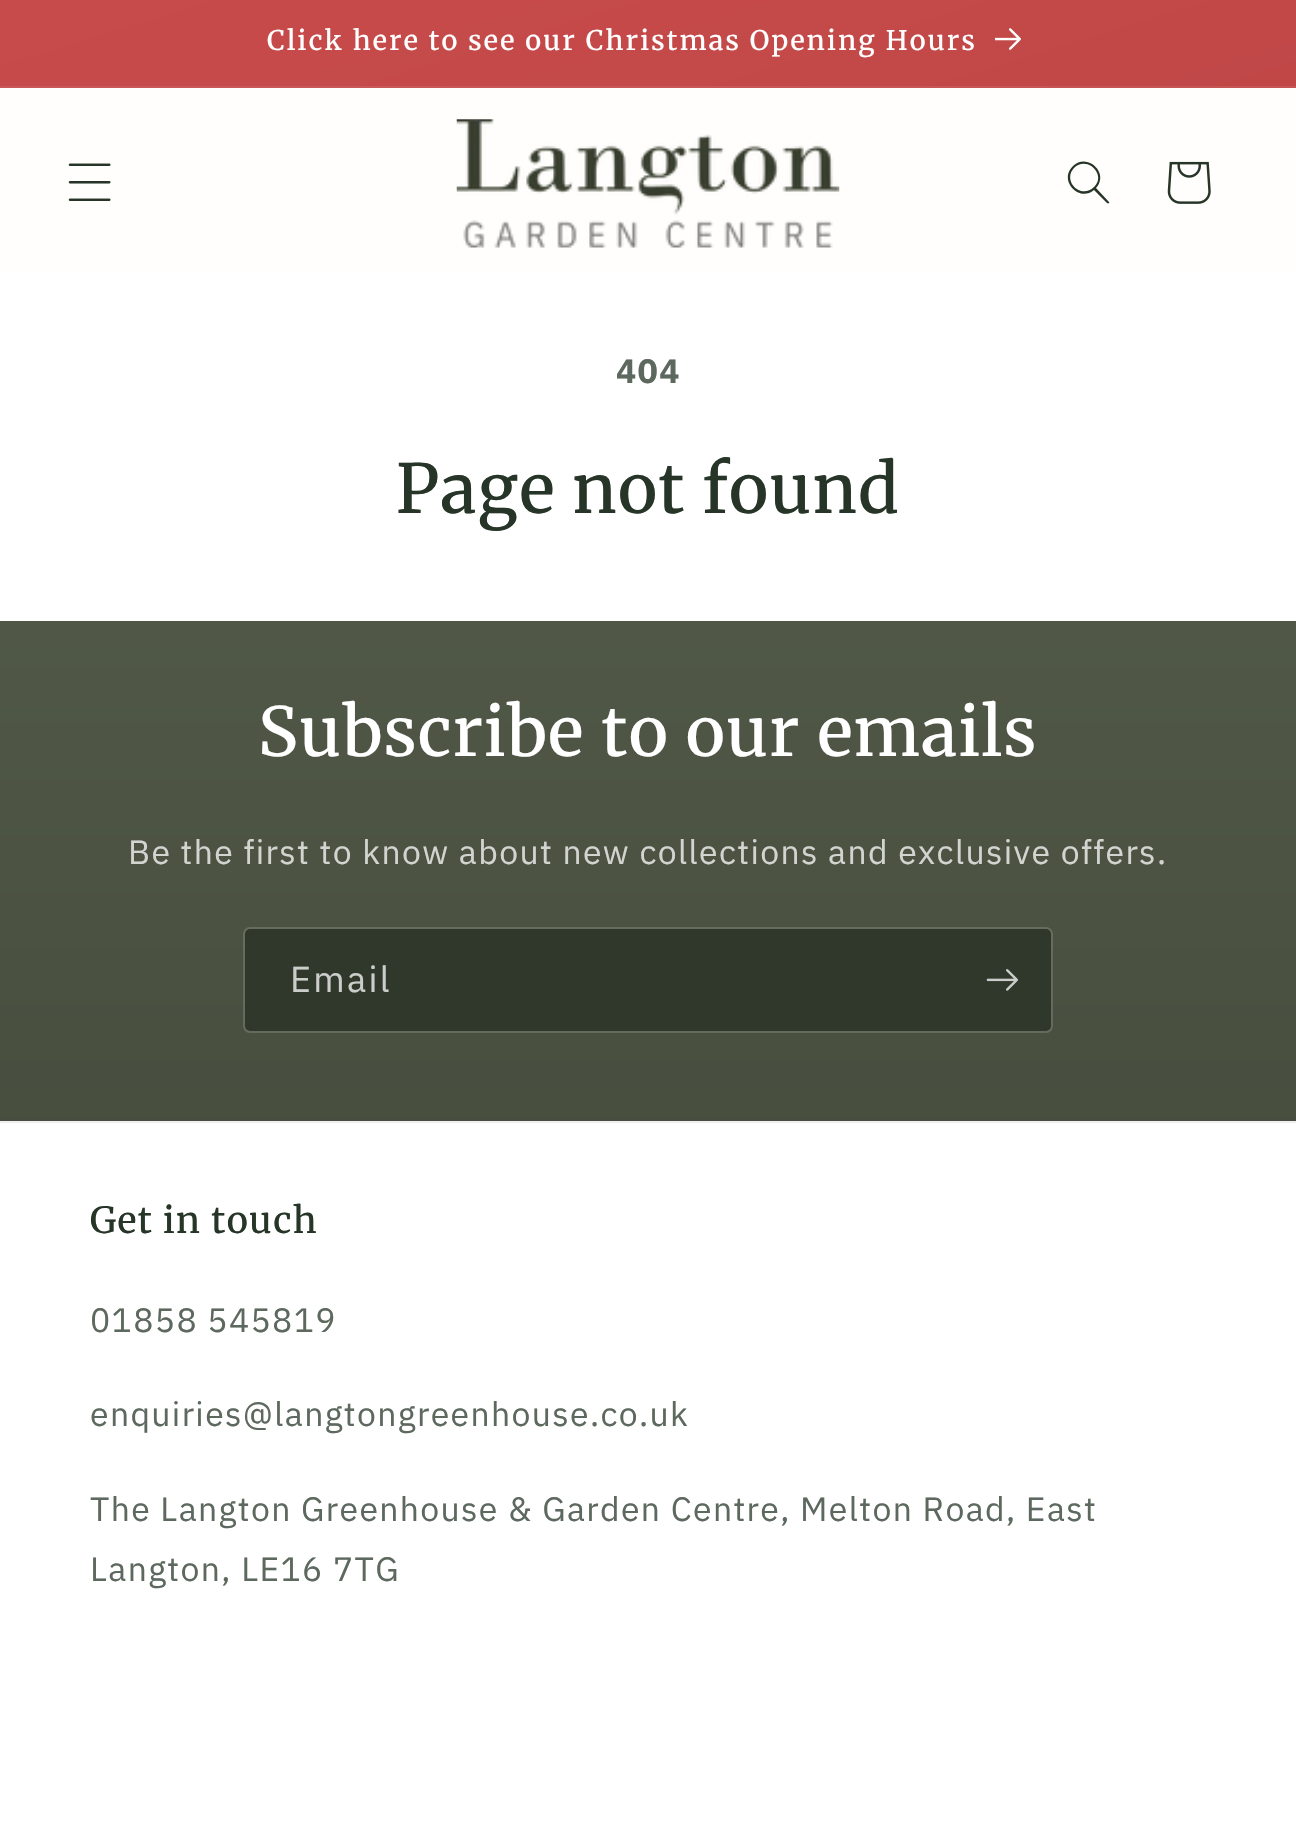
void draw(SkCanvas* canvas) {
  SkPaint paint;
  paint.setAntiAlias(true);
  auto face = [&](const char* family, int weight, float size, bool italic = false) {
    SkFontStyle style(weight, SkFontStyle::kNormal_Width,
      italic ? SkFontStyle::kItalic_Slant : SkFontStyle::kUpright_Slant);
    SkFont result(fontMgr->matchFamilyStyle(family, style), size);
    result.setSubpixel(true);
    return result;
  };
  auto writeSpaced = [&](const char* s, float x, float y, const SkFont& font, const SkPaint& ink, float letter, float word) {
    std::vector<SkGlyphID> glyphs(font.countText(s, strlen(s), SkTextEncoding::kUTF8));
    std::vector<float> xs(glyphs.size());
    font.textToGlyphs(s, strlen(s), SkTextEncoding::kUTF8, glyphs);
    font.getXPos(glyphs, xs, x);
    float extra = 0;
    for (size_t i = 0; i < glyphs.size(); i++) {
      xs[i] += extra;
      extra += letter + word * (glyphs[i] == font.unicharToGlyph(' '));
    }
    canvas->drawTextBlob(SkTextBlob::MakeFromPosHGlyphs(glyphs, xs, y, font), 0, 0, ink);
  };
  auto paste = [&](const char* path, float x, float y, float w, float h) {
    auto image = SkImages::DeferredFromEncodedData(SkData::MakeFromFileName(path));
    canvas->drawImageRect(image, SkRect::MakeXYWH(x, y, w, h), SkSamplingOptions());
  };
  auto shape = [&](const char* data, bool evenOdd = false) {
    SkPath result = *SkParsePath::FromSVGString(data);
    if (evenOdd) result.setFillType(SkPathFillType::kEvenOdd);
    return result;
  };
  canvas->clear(0xffffffff);
  {
    const SkColor colors[] = {0xffc84b4b, 0xffa73a3a};
    const float stops[] = {0, 1};
    const SkPoint ends[] = {{338, -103}, {958, 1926}};
    paint.setShader(SkGradientShader::MakeLinear(ends, colors, stops, 2, SkTileMode::kClamp));
    paint.setAlpha(255);
  }
  canvas->drawRect(SkRect::MakeXYWH(0, 0, 1296, 86), paint);
  {
    const SkColor colors[] = {0xffcc5959, 0xffae4a4a};
    const float stops[] = {0, 1};
    const SkPoint ends[] = {{338, -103}, {958, 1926}};
    paint.setShader(SkGradientShader::MakeLinear(ends, colors, stops, 2, SkTileMode::kClamp));
    paint.setAlpha(255);
  }
  canvas->drawRect(SkRect::MakeXYWH(0, 86, 1296, 2), paint);
  paste("img/1.png", 995, 28, 26, 22);
  paint.setShader(nullptr);
  paint.setColor(0xfffffefc);
  canvas->drawRect(SkRect::MakeXYWH(0, 88, 1296, 184), paint);
  paste("img/2.png", 68, 163, 43, 38);
  paste("img/3.png", 456, 119, 384, 129);
  paint.setColor(0xff273528);
  canvas->drawPath(shape("M1094 187C1081 200 1062 181 1074 168C1087 155 1107 175 1094 187M1094 190C1079 203 1058 180 1073 166C1087 152 1110 173 1096 188L1109 202C1110 203 1108 204 1107 203Z", true), paint);
  paste("img/4.png", 1167, 161, 44, 43);
  {
    const SkColor colors[] = {0xff59614e, 0xff3c4235};
    const float stops[] = {0.04f, 1};
    const SkPoint ends[] = {{648, 0}, {648, 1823}};
    paint.setShader(SkGradientShader::MakeLinear(ends, colors, stops, 2, SkTileMode::kClamp));
    paint.setAlpha(255);
  }
  canvas->drawRect(SkRect::MakeXYWH(0, 621, 1296, 500), paint);
  paint.setShader(nullptr);
  paint.setColor(0xff30382c);
  canvas->drawRoundRect(SkRect::MakeXYWH(245, 929, 806, 102), 5, 5, paint);
  paint.setStroke(true);
  paint.setStrokeWidth(2);
  paint.setColor(0x26ffffff);
  canvas->drawRoundRect(SkRect::MakeXYWH(244, 928, 808, 104), 6, 6, paint);
  paste("img/5.png", 986, 969, 32, 22);
  paint.setStroke(false);
  paint.setColor(0xffeeefee);
  canvas->drawRect(SkRect::MakeXYWH(0, 1121, 1296, 2), paint);
  auto f0 = face("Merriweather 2", 500, 27);
  paint.setColor(0xffffffff);
  writeSpaced("Click here to see our Christmas Opening Hours", 267, 50, f0, paint, 2.25f, 0);
  auto f1 = face("IBM Plex Sans", 700, 33.75f);
  paint.setColor(0xff5d685e);
  writeSpaced("404", 616, 383, f1, paint, 1.35f, 0);
  auto f2 = face("Merriweather", 500, 67.5f);
  paint.setColor(0xff273528);
  writeSpaced("Page not found", 396, 513, f2, paint, 1.35f, 0);
  paint.setColor(0xffffffff);
  writeSpaced("Subscribe to our emails", 258, 756, f2, paint, 1.35f, 0);
  auto f3 = face("IBM Plex Sans", 400, 33.75f);
  paint.setColor(0xffd2d4d0);
  writeSpaced("Be the first to know about new collections and exclusive offers.", 128, 864, f3, paint, 1.35f, 0);
  auto f4 = face("IBM Plex Sans", 400, 36);
  paint.setColor(0xffcbcdca);
  writeSpaced("Email", 290, 992, f4, paint, 2.25f, 0);
  auto f5 = face("Merriweather 2", 500, 36);
  paint.setColor(0xff273528);
  writeSpaced("Get in touch", 90, 1233, f5, paint, 1.35f, 0);
  paint.setColor(0xff5d685e);
  {
    const struct { const char* s; float x, y; } items[] = {
      {"01858 545819", 90, 1332},
      {"enquiries@langtongreenhouse.co.uk", 90, 1426},
      {"The Langton Greenhouse & Garden Centre, Melton Road, East", 90, 1521},
      {"Langton, LE16 7TG", 90, 1581},
    };
    for (auto [s, x, y] : items) {
      writeSpaced(s, x, y, f3, paint, 1.35f, 0);
    }
  }
}
